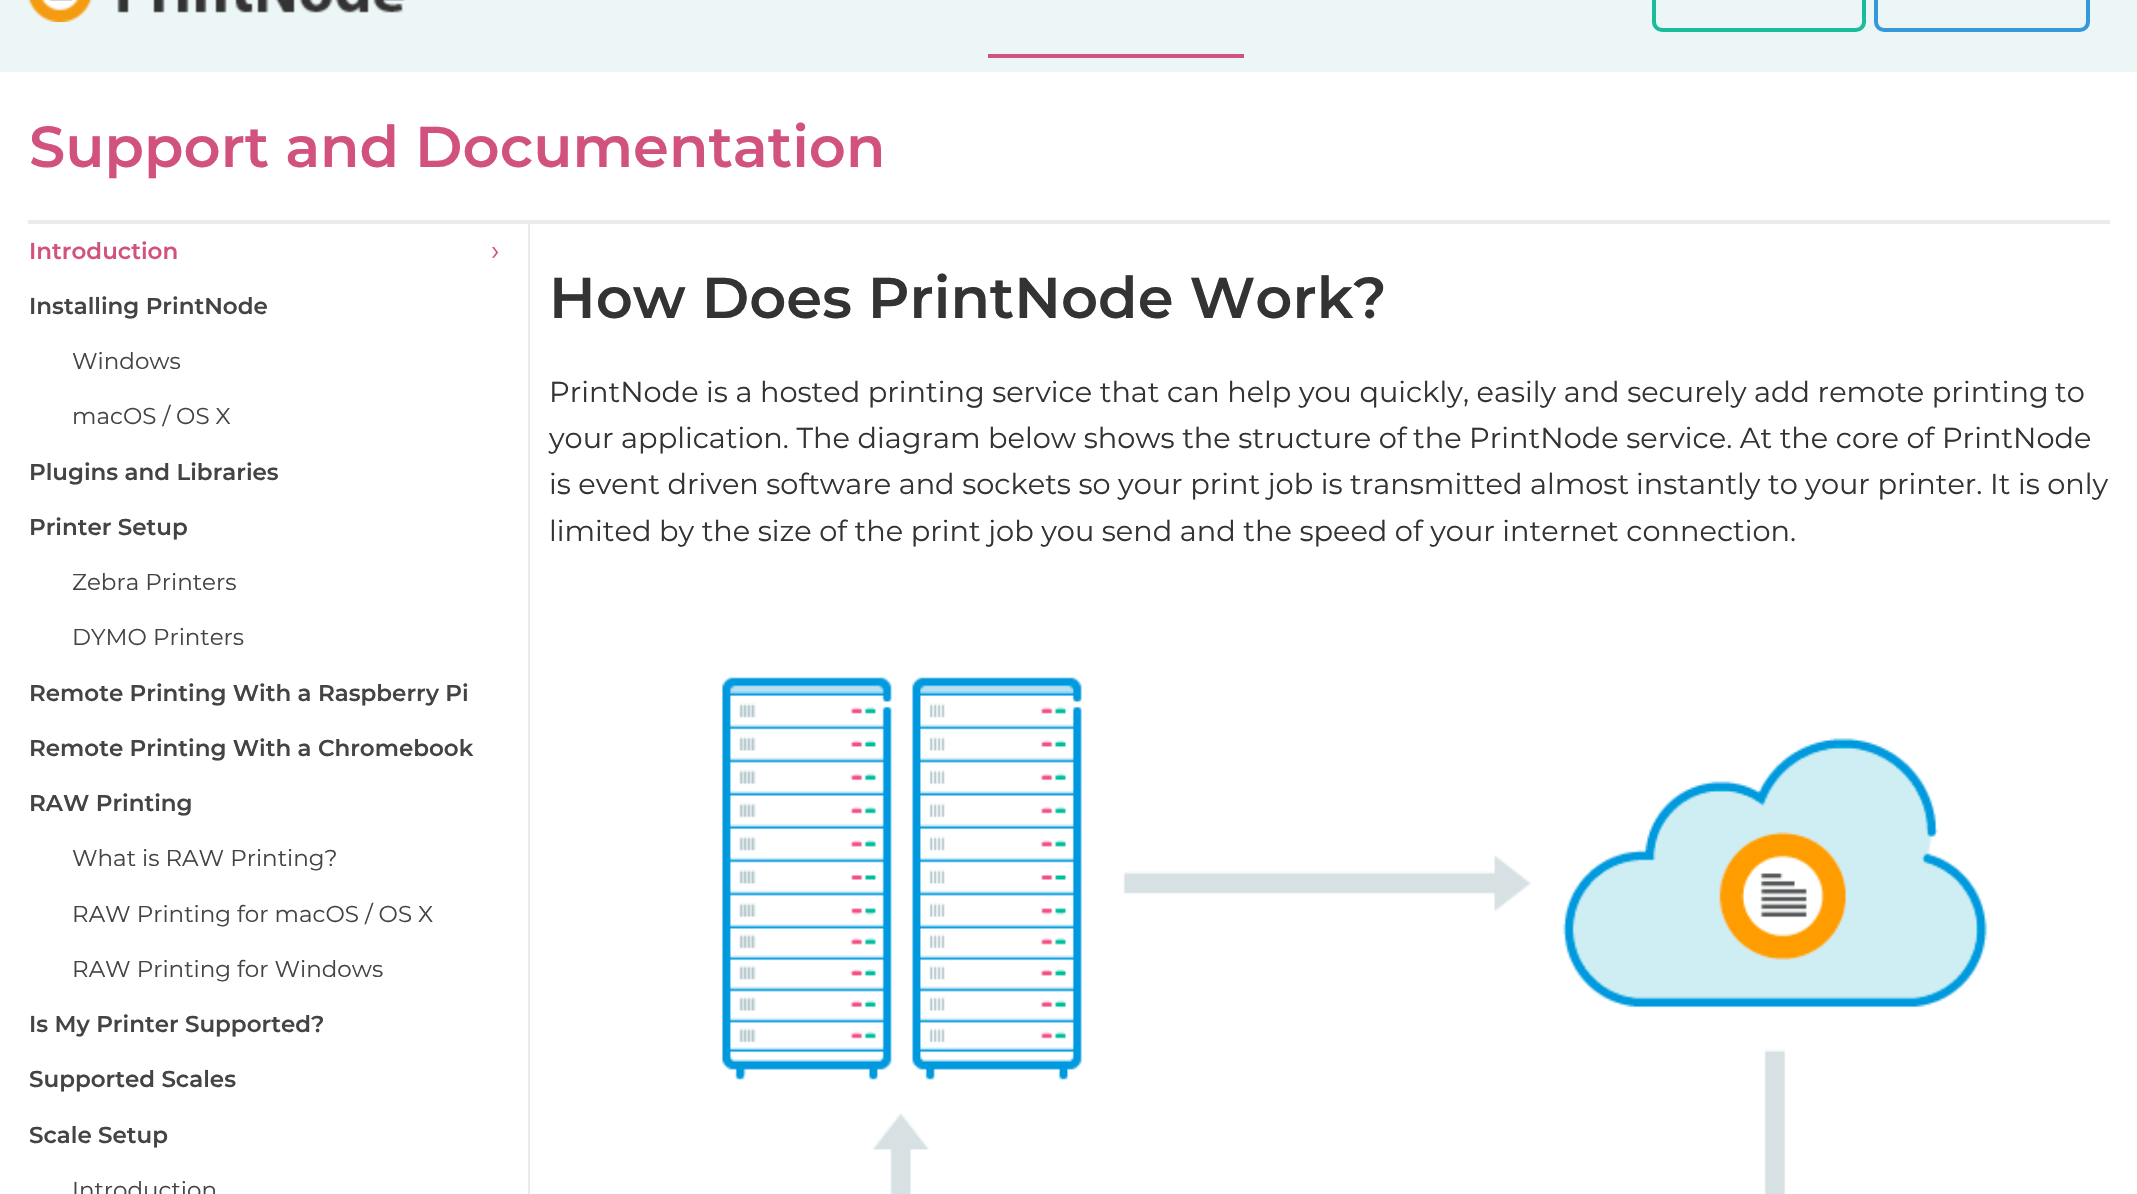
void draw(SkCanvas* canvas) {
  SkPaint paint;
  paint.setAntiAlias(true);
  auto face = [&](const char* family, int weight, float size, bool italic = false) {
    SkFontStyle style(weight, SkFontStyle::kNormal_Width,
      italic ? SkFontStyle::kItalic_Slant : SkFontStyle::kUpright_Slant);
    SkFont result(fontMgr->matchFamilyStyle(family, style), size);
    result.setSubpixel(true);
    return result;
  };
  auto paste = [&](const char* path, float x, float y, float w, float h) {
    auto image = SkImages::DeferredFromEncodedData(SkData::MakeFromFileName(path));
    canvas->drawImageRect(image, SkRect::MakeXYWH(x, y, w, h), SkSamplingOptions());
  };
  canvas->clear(0xffffffff);
  paint.setColor(0xffedf6f7);
  canvas->drawRect(SkRect::MakeXYWH(0, 0, 2137, 72), paint);
  paste("img/1.png", 28, 0, 376, 22);
  paint.setStroke(true);
  paint.setStrokeWidth(4);
  paint.setColor(0xff1abc9c);
  canvas->drawRoundRect(SkRect::MakeXYWH(1654, -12, 210, 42), 8, 8, paint);
  paint.setColor(0xff3498db);
  canvas->drawRoundRect(SkRect::MakeXYWH(1876, -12, 212, 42), 8, 8, paint);
  paint.setStroke(false);
  {
    const struct { float x, y, w, h; SkColor color; } items[] = {
      {988, 54, 256, 4, 0xffd2527f},
      {28, 220, 2082, 4, 0xffebebeb},
      {528, 224, 2, 970, 0xffebebeb},
    };
    for (auto [x, y, w, h, color] : items) {
      paint.setColor(color);
      canvas->drawRect(SkRect::MakeXYWH(x, y, w, h), paint);
    }
  }
  paste("img/2.png", 722, 677, 1266, 517);
  auto f0 = face("Montserrat", 600, 57.6f);
  paint.setColor(0xffd2527f);
  canvas->drawString("Support and Documentation", 29, 167, f0, paint);
  auto f1 = face("Montserrat", 600, 23);
  canvas->drawString("Introduction", 29, 259, f1, paint);
  auto f2 = face("Montserrat", 400, 28.8f);
  canvas->drawString("›", 491, 260, f2, paint);
  paint.setColor(0xff444444);
  canvas->drawString("Installing PrintNode", 29, 314, f1, paint);
  auto f3 = face("Montserrat", 400, 23);
  canvas->drawString("Windows", 72, 369, f3, paint);
  canvas->drawString("macOS / OS X", 72, 424, f3, paint);
  canvas->drawString("Plugins and Libraries", 29, 480, f1, paint);
  canvas->drawString("Printer Setup", 29, 535, f1, paint);
  canvas->drawString("Zebra Printers", 72, 590, f3, paint);
  canvas->drawString("DYMO Printers", 72, 645, f3, paint);
  {
    const struct { const char* s; float x, y; } items[] = {
      {"Remote Printing With a Raspberry Pi", 29, 701},
      {"Remote Printing With a Chromebook", 29, 756},
      {"RAW Printing", 29, 811},
    };
    for (auto [s, x, y] : items) {
      canvas->drawString(s, x, y, f1, paint);
    }
  }
  {
    const struct { const char* s; float x, y; } items[] = {
      {"What is RAW Printing?", 72, 866},
      {"RAW Printing for macOS / OS X", 72, 922},
      {"RAW Printing for Windows", 72, 977},
    };
    for (auto [s, x, y] : items) {
      canvas->drawString(s, x, y, f3, paint);
    }
  }
  {
    const struct { const char* s; float x, y; } items[] = {
      {"Is My Printer Supported?", 29, 1032},
      {"Supported Scales", 29, 1087},
      {"Scale Setup", 29, 1143},
    };
    for (auto [s, x, y] : items) {
      canvas->drawString(s, x, y, f1, paint);
    }
  }
  canvas->drawString("Introduction", 72, 1198, f3, paint);
  paint.setColor(0xff333333);
  canvas->drawString("How Does PrintNode Work?", 549, 318, f0, paint);
  {
    const struct { const char* s; float x, y; } items[] = {
      {"PrintNode is a hosted printing service that", 549, 402},
      {"can help you quickly, easily and securely add remote printing", 1167, 402},
      {"to", 2055, 402},
      {"your application. The diagram below shows the structure of", 549, 448},
      {"the PrintNode service. At the core of PrintNode", 1413, 448},
      {"is event driven software and sockets so your print job is transmitted almost", 549, 494},
      {"instantly to your printer. It is only", 1636, 494},
      {"limited by the size of the print job you send and the speed of your internet connection.", 549, 541},
    };
    for (auto [s, x, y] : items) {
      canvas->drawString(s, x, y, f2, paint);
    }
  }
}
